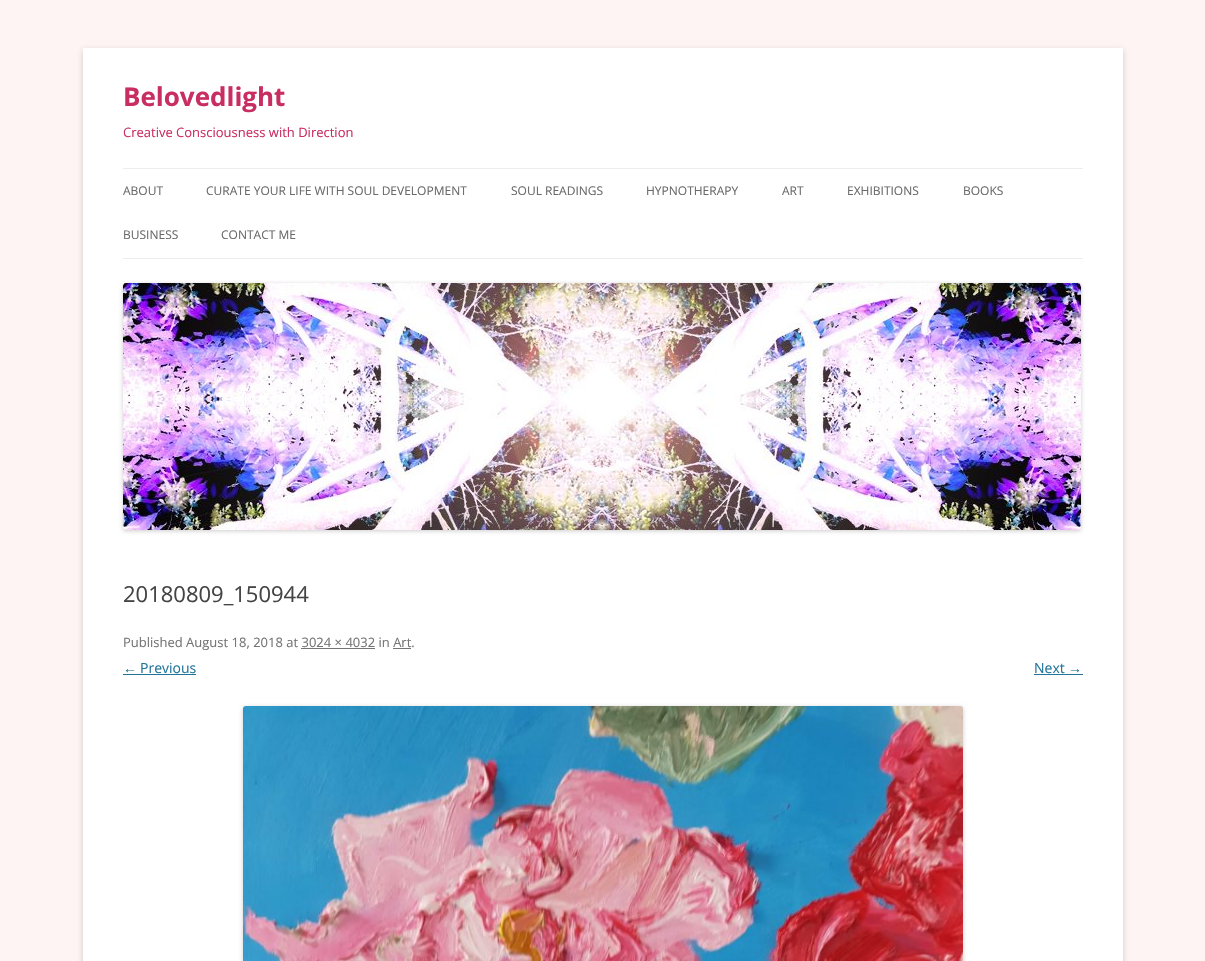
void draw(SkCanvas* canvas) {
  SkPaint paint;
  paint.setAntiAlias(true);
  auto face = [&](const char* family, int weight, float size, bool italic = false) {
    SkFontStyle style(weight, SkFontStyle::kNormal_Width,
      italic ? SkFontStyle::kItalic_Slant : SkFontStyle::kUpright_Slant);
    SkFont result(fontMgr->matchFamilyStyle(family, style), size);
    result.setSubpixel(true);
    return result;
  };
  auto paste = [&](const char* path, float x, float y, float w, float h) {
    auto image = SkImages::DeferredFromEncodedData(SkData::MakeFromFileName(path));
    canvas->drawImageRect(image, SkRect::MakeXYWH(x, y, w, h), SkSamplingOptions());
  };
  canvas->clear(0xfffff4f4);
  paint.setColor(0x4d646464);
  paint.setMaskFilter(SkMaskFilter::MakeBlur(kNormal_SkBlurStyle, 3));
  canvas->drawRect(SkRect::MakeXYWH(83, 50, 1040, 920), paint);
  paint.setMaskFilter(nullptr);
  {
    const struct { float x, y, w, h; SkColor color; } items[] = {
      {83, 48, 1040, 913, 0xffffffff},
      {123, 168, 960, 1, 0xffededed},
      {123, 258, 960, 1, 0xffededed},
    };
    for (auto [x, y, w, h, color] : items) {
      paint.setColor(color);
      canvas->drawRect(SkRect::MakeXYWH(x, y, w, h), paint);
    }
  }
  paint.setColor(0x33000000);
  paint.setMaskFilter(SkMaskFilter::MakeBlur(kNormal_SkBlurStyle, 2));
  canvas->drawRoundRect(SkRect::MakeXYWH(123, 284, 958, 247), 3, 3, paint);
  paint.setMaskFilter(nullptr);
  paste("img/1.png", 123, 283, 958, 247);
  {
    const struct { float x, y, w, h; SkColor color; } items[] = {
      {301, 648, 74, 1, 0xff757575},
      {393, 648, 18, 1, 0xff757575},
      {123, 674, 73, 1, 0xff21759b},
      {1034, 674, 49, 1, 0xff21759b},
    };
    for (auto [x, y, w, h, color] : items) {
      paint.setColor(color);
      canvas->drawRect(SkRect::MakeXYWH(x, y, w, h), paint);
    }
  }
  paint.setColor(0x33000000);
  paint.setMaskFilter(SkMaskFilter::MakeBlur(kNormal_SkBlurStyle, 2));
  canvas->drawRoundRect(SkRect::MakeXYWH(243, 707, 720, 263), 3, 3, paint);
  paint.setMaskFilter(nullptr);
  paste("img/2.png", 243, 706, 720, 255);
  auto f0 = face("Open Sans", 700, 26);
  paint.setColor(0xffc92e62);
  canvas->drawString("Belovedlight", 123, 106, f0, paint);
  auto f1 = face("Open Sans", 400, 13);
  canvas->drawString("Creative Consciousness with Direction", 123, 137, f1, paint);
  auto f2 = face("Open Sans", 400, 12);
  paint.setColor(0xff6a6a6a);
  {
    const struct { const char* s; float x, y; } items[] = {
      {"ABOUT", 123, 195},
      {"CURATE YOUR LIFE WITH SOUL DEVELOPMENT", 206, 195},
      {"SOUL READINGS", 511, 195},
      {"HYPNOTHERAPY", 646, 195},
      {"ART", 782, 195},
      {"EXHIBITIONS", 847, 195},
      {"BOOKS", 963, 195},
      {"BUSINESS", 123, 239},
      {"CONTACT ME", 221, 239},
    };
    for (auto [s, x, y] : items) {
      canvas->drawString(s, x, y, f2, paint);
    }
  }
  auto f3 = face("Open Sans", 400, 22);
  paint.setColor(0xff444444);
  canvas->drawString("20180809_150944", 123, 602, f3, paint);
  paint.setColor(0xff757575);
  canvas->drawString("Published August 18, 2018 at 3024 × 4032 in Art.", 123, 647, f1, paint);
  auto f4 = face("Liberation Sans", 400, 14);
  paint.setColor(0xff21759b);
  canvas->drawString("←", 123, 673, f4, paint);
  auto f5 = face("Open Sans", 400, 14);
  canvas->drawString("Previous", 140, 673, f5, paint);
  canvas->drawString("Next", 1034, 673, f5, paint);
  canvas->drawString("→", 1068, 673, f4, paint);
}
